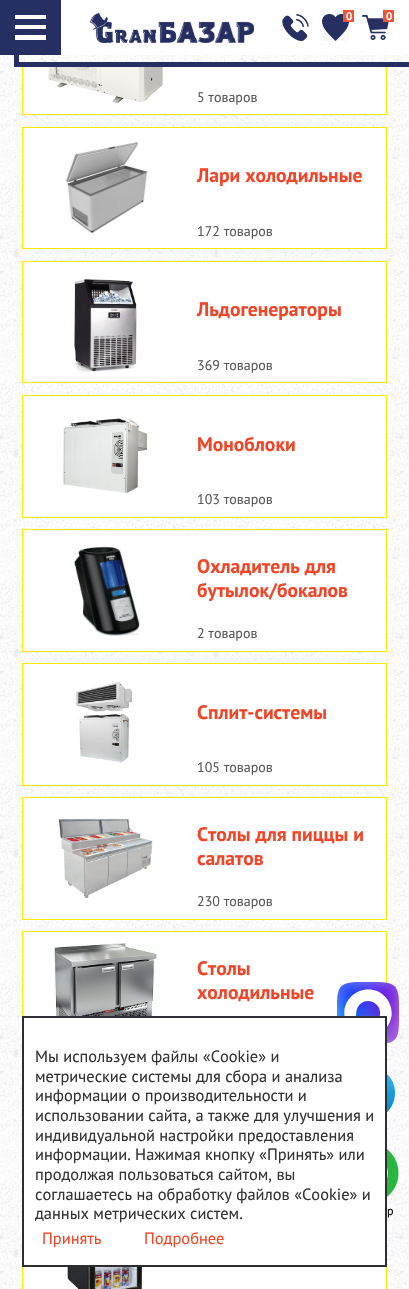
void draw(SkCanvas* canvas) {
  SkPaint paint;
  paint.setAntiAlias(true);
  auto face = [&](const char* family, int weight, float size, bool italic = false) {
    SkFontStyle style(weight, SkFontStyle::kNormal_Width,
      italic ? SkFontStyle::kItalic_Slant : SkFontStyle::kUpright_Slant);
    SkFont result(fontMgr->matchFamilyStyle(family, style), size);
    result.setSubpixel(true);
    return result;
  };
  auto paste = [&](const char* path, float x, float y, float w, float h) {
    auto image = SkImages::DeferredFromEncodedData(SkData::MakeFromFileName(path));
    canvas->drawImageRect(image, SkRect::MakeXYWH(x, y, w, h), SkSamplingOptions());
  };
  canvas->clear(0xffffffff);
  paste("img/1.png", 0, 55, 409, 1234);
  paint.setColor(0xffffffff);
  canvas->drawRect(SkRect::MakeXYWH(23, 67, 363, 47), paint);
  paint.setStroke(true);
  paint.setStrokeWidth(1);
  paint.setColor(0xffffea00);
  canvas->drawRect(SkRect::MakeXYWH(22.5f, -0.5f, 364, 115), paint);
  paint.setStroke(false);
  {
    const struct { float x, y, w, h; SkColor color; } items[] = {
      {0, 0, 61, 55, 0xff252f62},
      {15, 15, 31, 4, 0xffffffff},
      {15, 25, 31, 4, 0xffffffff},
      {15, 35, 31, 5, 0xffffffff},
      {386, 0, 1, 55, 0xffffffff},
    };
    for (auto [x, y, w, h, color] : items) {
      paint.setColor(color);
      canvas->drawRect(SkRect::MakeXYWH(x, y, w, h), paint);
    }
  }
  paste("img/2.png", 89, 12, 165, 31);
  paste("img/3.png", 282, 14, 27, 27);
  paste("img/4.png", 322, 14, 27, 27);
  paint.setColor(0xfff25336);
  canvas->drawRect(SkRect::MakeXYWH(343, 10, 11, 12), paint);
  paste("img/5.png", 362, 15, 27, 25);
  canvas->drawRect(SkRect::MakeXYWH(383, 10, 11, 12), paint);
  paste("img/6.png", 19, 55, 390, 7);
  paint.setColor(0xff252f62);
  canvas->drawRect(SkRect::MakeXYWH(14, 62, 395, 5), paint);
  canvas->drawRect(SkRect::MakeXYWH(14, 55, 5, 12), paint);
  paste("img/7.png", 48, 67, 115, 36);
  paint.setColor(0xffffffff);
  canvas->drawRect(SkRect::MakeXYWH(22.5f, 127.5f, 364, 121), paint);
  paint.setStroke(true);
  paint.setColor(0xffffea00);
  canvas->drawRect(SkRect::MakeXYWH(22.5f, 127.5f, 364, 121), paint);
  paste("img/8.png", 65, 142, 83, 91);
  paint.setStroke(false);
  paint.setColor(0xffffffff);
  canvas->drawRect(SkRect::MakeXYWH(22.5f, 261.5f, 364, 121), paint);
  paint.setStroke(true);
  paint.setColor(0xffffea00);
  canvas->drawRect(SkRect::MakeXYWH(22.5f, 261.5f, 364, 121), paint);
  paste("img/9.png", 74, 279, 63, 93);
  paint.setStroke(false);
  paint.setColor(0xffffffff);
  canvas->drawRect(SkRect::MakeXYWH(22.5f, 395.5f, 364, 122), paint);
  paint.setStroke(true);
  paint.setColor(0xffffea00);
  canvas->drawRect(SkRect::MakeXYWH(22.5f, 395.5f, 364, 122), paint);
  paste("img/10.png", 63, 418, 85, 76);
  paint.setStroke(false);
  paint.setColor(0xffffffff);
  canvas->drawRect(SkRect::MakeXYWH(22.5f, 529.5f, 364, 122), paint);
  paint.setStroke(true);
  paint.setColor(0xffffea00);
  canvas->drawRect(SkRect::MakeXYWH(22.5f, 529.5f, 364, 122), paint);
  paste("img/11.png", 74, 546, 66, 90);
  paint.setStroke(false);
  paint.setColor(0xffffffff);
  canvas->drawRect(SkRect::MakeXYWH(22.5f, 663.5f, 364, 122), paint);
  paint.setStroke(true);
  paint.setColor(0xffffea00);
  canvas->drawRect(SkRect::MakeXYWH(22.5f, 663.5f, 364, 122), paint);
  paste("img/12.png", 76, 682, 57, 81);
  paint.setStroke(false);
  paint.setColor(0xffffffff);
  canvas->drawRect(SkRect::MakeXYWH(22.5f, 797.5f, 364, 122), paint);
  paint.setStroke(true);
  paint.setColor(0xffffea00);
  canvas->drawRect(SkRect::MakeXYWH(22.5f, 797.5f, 364, 122), paint);
  paste("img/13.png", 58, 818, 95, 81);
  paint.setStroke(false);
  paint.setColor(0xffffffff);
  canvas->drawRect(SkRect::MakeXYWH(23, 932, 363, 84), paint);
  paint.setStroke(true);
  paint.setColor(0xffffea00);
  canvas->drawRect(SkRect::MakeXYWH(22.5f, 931.5f, 364, 122), paint);
  paste("img/14.png", 54, 943, 103, 73);
  paint.setStroke(false);
  paint.setColor(0xffffffff);
  canvas->drawRect(SkRect::MakeXYWH(23, 1267, 363, 22), paint);
  paint.setStroke(true);
  paint.setColor(0xffffea00);
  canvas->drawRect(SkRect::MakeXYWH(22.5f, 1200.5f, 364, 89), paint);
  paste("img/15.png", 67, 1267, 77, 22);
  paste("img/16.png", 337, 982, 62, 62);
  paint.setStroke(false);
  paint.setColor(0xffffffff);
  canvas->drawRect(SkRect::MakeXYWH(23, 1017, 363, 249), paint);
  paint.setStroke(true);
  paint.setStrokeWidth(2);
  paint.setColor(0xff2d2e33);
  canvas->drawRect(SkRect::MakeXYWH(23, 1017, 363, 249), paint);
  paste("img/17.png", 387, 1074, 8, 38);
  paste("img/18.png", 387, 1149, 12, 48);
  auto f0 = face("PT Sans", 700, 11);
  paint.setStroke(false);
  paint.setColor(0xffffffff);
  canvas->drawString("0", 346, 20, f0, paint);
  canvas->drawString("0", 386, 20, f0, paint);
  auto f1 = face("PT Sans", 400, 14);
  paint.setColor(0xff595959);
  canvas->drawString("5 товаров", 197, 102, f1, paint);
  auto f2 = face("PT Sans", 700, 19.6f);
  paint.setColor(0xfff14527);
  canvas->drawString("Лари холодильные", 197, 182, f2, paint);
  paint.setColor(0xff595959);
  canvas->drawString("172 товаров", 197, 236, f1, paint);
  paint.setColor(0xfff14527);
  canvas->drawString("Льдогенераторы", 197, 316, f2, paint);
  paint.setColor(0xff595959);
  canvas->drawString("369 товаров", 197, 370, f1, paint);
  paint.setColor(0xfff14527);
  canvas->drawString("Моноблоки", 197, 451, f2, paint);
  paint.setColor(0xff595959);
  canvas->drawString("103 товаров", 197, 504, f1, paint);
  paint.setColor(0xfff14527);
  canvas->drawString("Охладитель для", 197, 573, f2, paint);
  canvas->drawString("бутылок/бокалов", 197, 597, f2, paint);
  paint.setColor(0xff595959);
  canvas->drawString("2 товаров", 197, 638, f1, paint);
  paint.setColor(0xfff14527);
  canvas->drawString("Сплит-системы", 197, 719, f2, paint);
  paint.setColor(0xff595959);
  canvas->drawString("105 товаров", 197, 772, f1, paint);
  paint.setColor(0xfff14527);
  canvas->drawString("Столы для пиццы и", 197, 841, f2, paint);
  canvas->drawString("салатов", 197, 865, f2, paint);
  paint.setColor(0xff595959);
  canvas->drawString("230 товаров", 197, 906, f1, paint);
  paint.setColor(0xfff14527);
  canvas->drawString("Столы", 197, 975, f2, paint);
  canvas->drawString("холодильные", 197, 999, f2, paint);
  auto f3 = face("PT Sans", 400, 16.4f);
  paint.setColor(0xff333333);
  {
    const struct { const char* s; float x, y; } items[] = {
      {"Мы используем файлы «Cookie» и", 35, 1062},
      {"метрические системы для сбора и анализа", 35, 1082},
      {"информации о производительности и", 35, 1101},
      {"использовании сайта, а также для улучшения и", 35, 1121},
      {"индивидуальной настройки предоставления", 35, 1141},
      {"информации. Нажимая кнопку «Принять» или", 35, 1160},
      {"продолжая пользоваться сайтом, вы", 35, 1180},
      {"соглашаетесь на обработку файлов «Cookie» и", 35, 1200},
      {"данных метрических систем.", 35, 1219},
    };
    for (auto [s, x, y] : items) {
      canvas->drawString(s, x, y, f3, paint);
    }
  }
  paint.setColor(0xfff14527);
  canvas->drawString("Принять", 42, 1244, f3, paint);
  canvas->drawString("Подробнее", 144, 1244, f3, paint);
  auto f4 = face("PT Sans", 400, 12);
  paint.setColor(0xff000000);
  canvas->drawString("p", 387, 1215, f4, paint);
}
